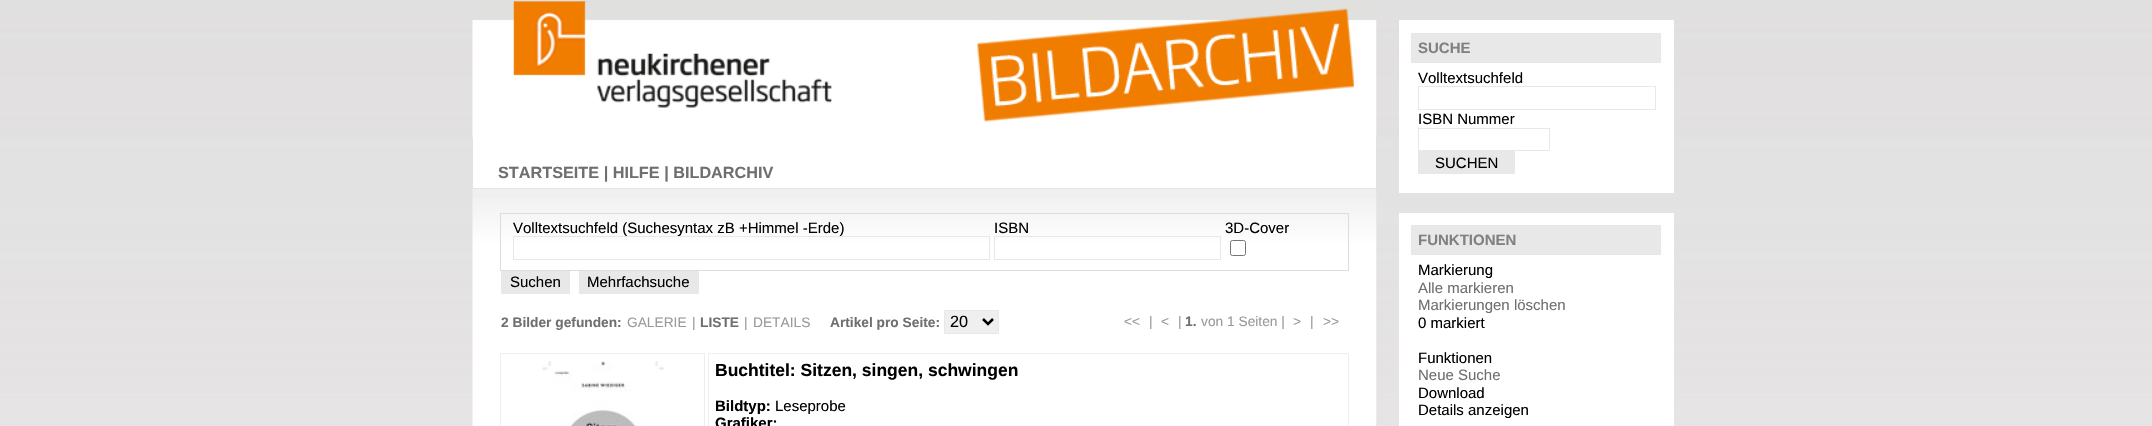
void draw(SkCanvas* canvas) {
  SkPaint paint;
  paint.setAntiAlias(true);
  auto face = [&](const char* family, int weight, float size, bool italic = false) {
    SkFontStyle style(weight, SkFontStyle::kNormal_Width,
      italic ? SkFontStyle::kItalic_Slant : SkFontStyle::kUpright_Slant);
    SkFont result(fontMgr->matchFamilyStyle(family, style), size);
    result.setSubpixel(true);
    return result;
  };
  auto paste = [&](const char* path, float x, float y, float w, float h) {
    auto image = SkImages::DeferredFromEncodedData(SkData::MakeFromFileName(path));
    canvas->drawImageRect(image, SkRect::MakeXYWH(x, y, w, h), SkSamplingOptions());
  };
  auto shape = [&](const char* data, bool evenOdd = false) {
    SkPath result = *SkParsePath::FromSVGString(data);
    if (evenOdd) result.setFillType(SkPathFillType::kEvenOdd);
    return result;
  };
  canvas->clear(0xffffffff);
  paste("img/1.png", 0, 0, 2152, 426);
  paint.setColor(0xffffffff);
  canvas->drawRect(SkRect::MakeXYWH(1399, 20, 275, 173), paint);
  paint.setColor(0xffe8e8e8);
  canvas->drawRect(SkRect::MakeXYWH(1411, 33, 250, 30), paint);
  paint.setStroke(true);
  paint.setStrokeWidth(1);
  canvas->drawRect(SkRect::MakeXYWH(1418.5f, 86.5f, 237, 23), paint);
  canvas->drawRect(SkRect::MakeXYWH(1418.5f, 128.5f, 131, 22), paint);
  paint.setStroke(false);
  canvas->drawRect(SkRect::MakeXYWH(1418, 151, 97, 23), paint);
  paint.setColor(0xffffffff);
  canvas->drawRect(SkRect::MakeXYWH(473, 137, 903, 51), paint);
  paste("img/2.png", 472, 0, 905, 138);
  paste("img/3.png", 472, 188, 905, 238);
  paint.setStroke(true);
  paint.setColor(0xffdddddd);
  canvas->drawRect(SkRect::MakeXYWH(500.5f, 213.5f, 848, 57), paint);
  paint.setColor(0xffe8e8e8);
  canvas->drawRect(SkRect::MakeXYWH(994.5f, 236.5f, 226, 23), paint);
  paint.setColor(0xff767676);
  canvas->drawRoundRect(SkRect::MakeXYWH(1230.5f, 240.5f, 15, 15), 2, 2, paint);
  paint.setStroke(false);
  paint.setColor(0xffe8e8e8);
  canvas->drawRect(SkRect::MakeXYWH(501, 271, 69, 23), paint);
  canvas->drawRect(SkRect::MakeXYWH(579, 271, 120, 23), paint);
  paint.setColor(0xffefefef);
  canvas->drawRect(SkRect::MakeXYWH(944.5f, 310.5f, 54, 23), paint);
  paint.setStroke(true);
  paint.setColor(0xffe8e8e8);
  canvas->drawRect(SkRect::MakeXYWH(944.5f, 310.5f, 54, 23), paint);
  paint.setStrokeWidth(2.5f);
  paint.setColor(0xff000000);
  canvas->drawPath(shape("M983 319L988 324L993 319"), paint);
  paint.setStrokeWidth(1);
  paint.setColor(0xffefefef);
  canvas->drawRect(SkRect::MakeXYWH(500.5f, 353.5f, 204, 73), paint);
  paste("img/4.png", 542, 361, 122, 65);
  canvas->drawRect(SkRect::MakeXYWH(708.5f, 353.5f, 640, 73), paint);
  paint.setStroke(false);
  paint.setColor(0xffffffff);
  canvas->drawRect(SkRect::MakeXYWH(1399, 213, 275, 213), paint);
  paint.setColor(0xffe8e8e8);
  canvas->drawRect(SkRect::MakeXYWH(1411, 225, 250, 30), paint);
  auto f0 = face("Liberation Sans", 700, 15);
  paint.setColor(0xff808080);
  canvas->drawString("SUCHE", 1418, 53, f0, paint);
  auto f1 = face("Liberation Sans", 400, 15);
  paint.setColor(0xff000000);
  {
    const struct { const char* s; float x, y; } items[] = {
      {"Volltextsuchfeld", 1418, 83},
      {"ISBN Nummer", 1418, 124},
      {"SUCHEN", 1435, 168},
    };
    for (auto [s, x, y] : items) {
      canvas->drawString(s, x, y, f1, paint);
    }
  }
  auto f2 = face("Liberation Sans", 700, 16.25f);
  paint.setColor(0xff6f6f6f);
  canvas->drawString("STARTSEITE | HILFE | BILDARCHIV", 498, 178, f2, paint);
  paint.setColor(0xff000000);
  canvas->drawString("Volltextsuchfeld (Suchesyntax zB +Himmel -Erde)", 513, 233, f1, paint);
  paint.setStroke(true);
  paint.setColor(0xffe8e8e8);
  canvas->drawRect(SkRect::MakeXYWH(513.5f, 236.5f, 476, 23), paint);
  paint.setStroke(false);
  paint.setColor(0xff000000);
  {
    const struct { const char* s; float x, y; } items[] = {
      {"ISBN", 994, 233},
      {"3D-Cover", 1225, 233},
      {"Suchen", 510, 287},
      {"Mehrfachsuche", 587, 287},
    };
    for (auto [s, x, y] : items) {
      canvas->drawString(s, x, y, f1, paint);
    }
  }
  auto f3 = face("Liberation Sans", 700, 13.75f);
  paint.setColor(0xff6f6f6f);
  canvas->drawString("2 Bilder gefunden:", 501, 327, f3, paint);
  auto f4 = face("Liberation Sans", 400, 13.75f);
  paint.setColor(0xff999999);
  canvas->drawString("GALERIE", 627, 327, f4, paint);
  canvas->drawString("|", 692, 327, f4, paint);
  paint.setColor(0xff6f6f6f);
  canvas->drawString("LISTE", 700, 327, f3, paint);
  paint.setColor(0xff999999);
  canvas->drawString("|", 744, 327, f4, paint);
  canvas->drawString("DETAILS", 753, 327, f4, paint);
  paint.setColor(0xff6f6f6f);
  canvas->drawString("Artikel pro Seite:", 830, 327, f3, paint);
  auto f5 = face("Liberation Sans", 400, 16.25f);
  paint.setColor(0xff000000);
  canvas->drawString("20", 950, 327, f5, paint);
  paint.setColor(0xff999999);
  {
    const struct { const char* s; float x, y; } items[] = {
      {"<<", 1124, 326},
      {"|", 1149, 326},
      {"<", 1161, 326},
      {"|", 1178, 326},
    };
    for (auto [s, x, y] : items) {
      canvas->drawString(s, x, y, f4, paint);
    }
  }
  paint.setColor(0xff6f6f6f);
  canvas->drawString("1.", 1185, 326, f3, paint);
  paint.setColor(0xff999999);
  {
    const struct { const char* s; float x, y; } items[] = {
      {"von 1 Seiten |", 1201, 326},
      {">", 1293, 326},
      {"|", 1310, 326},
      {">>", 1323, 326},
    };
    for (auto [s, x, y] : items) {
      canvas->drawString(s, x, y, f4, paint);
    }
  }
  auto f6 = face("Liberation Sans", 700, 17.5f);
  paint.setColor(0xff000000);
  canvas->drawString("Buchtitel: Sitzen, singen, schwingen", 715, 376, f6, paint);
  canvas->drawString("Bildtyp:", 715, 411, f0, paint);
  canvas->drawString("Leseprobe", 775, 411, f1, paint);
  canvas->drawString("Grafiker:", 715, 428, f0, paint);
  paint.setColor(0xff808080);
  canvas->drawString("FUNKTIONEN", 1418, 245, f0, paint);
  paint.setColor(0xff000000);
  canvas->drawString("Markierung", 1418, 275, f1, paint);
  paint.setColor(0xff6f6f6f);
  canvas->drawString("Alle markieren", 1418, 293, f1, paint);
  canvas->drawString("Markierungen löschen", 1418, 310, f1, paint);
  paint.setColor(0xff000000);
  canvas->drawString("0 markiert", 1418, 328, f1, paint);
  canvas->drawString("Funktionen", 1418, 363, f1, paint);
  paint.setColor(0xff6f6f6f);
  canvas->drawString("Neue Suche", 1418, 380, f1, paint);
  paint.setColor(0xff000000);
  canvas->drawString("Download", 1418, 398, f1, paint);
  canvas->drawString("Details anzeigen", 1418, 415, f1, paint);
}
